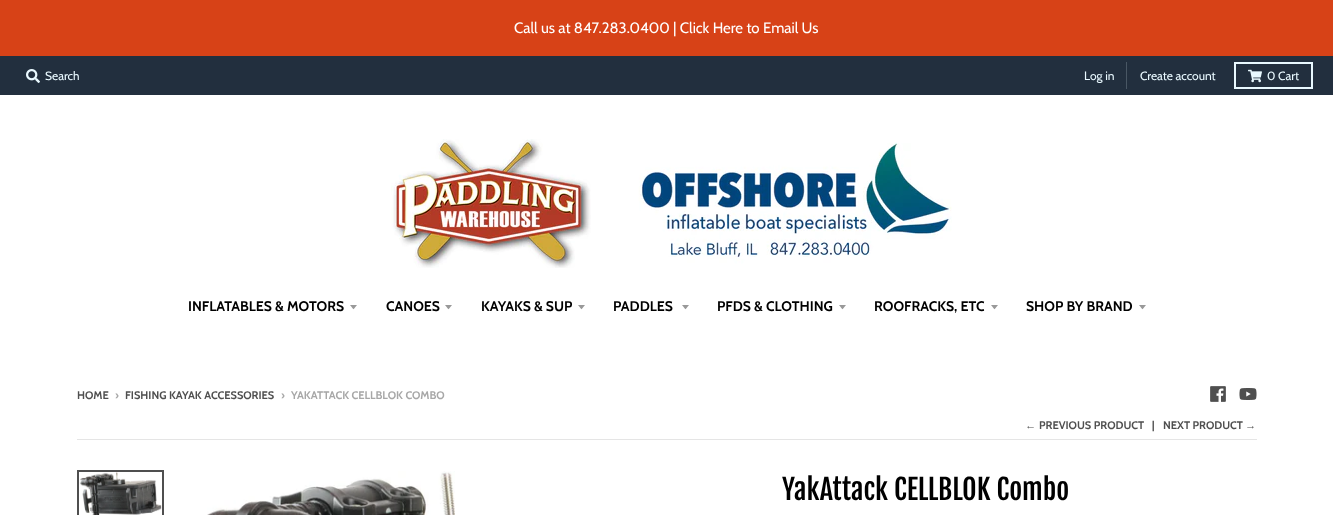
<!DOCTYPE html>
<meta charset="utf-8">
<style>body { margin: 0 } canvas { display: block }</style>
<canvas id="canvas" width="1333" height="515"></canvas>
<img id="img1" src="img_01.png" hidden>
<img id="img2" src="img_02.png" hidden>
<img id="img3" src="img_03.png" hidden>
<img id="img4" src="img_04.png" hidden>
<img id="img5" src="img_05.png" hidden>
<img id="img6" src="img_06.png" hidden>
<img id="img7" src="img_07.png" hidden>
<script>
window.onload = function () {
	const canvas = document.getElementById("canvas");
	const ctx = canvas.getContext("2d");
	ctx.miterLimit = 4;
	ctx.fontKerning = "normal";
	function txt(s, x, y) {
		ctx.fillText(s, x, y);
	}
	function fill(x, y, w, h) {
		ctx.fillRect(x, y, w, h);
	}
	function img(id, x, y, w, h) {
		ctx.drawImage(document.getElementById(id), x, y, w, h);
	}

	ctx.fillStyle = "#FFFFFF";
	fill(0, 0, 1333, 515);
	ctx.fillStyle = "#D74217";
	fill(0, 0, 1333, 56);
	ctx.fillStyle = "#222F3E";
	fill(0, 56, 1333, 39);
	img("img1", 26, 69, 14, 14);
	ctx.fillStyle = "#495764";
	fill(1126, 62, 1, 27);
	ctx.strokeStyle = "#E9F9FF";
	ctx.lineWidth = 2;
	ctx.strokeRect(1235, 63, 77, 25);
	img("img2", 1248, 69, 14, 14);
	img("img3", 391, 139, 561, 129);
	ctx.fillStyle = "#999999";
	ctx.beginPath();
	ctx.moveTo(350, 305);
	ctx.bezierCurveTo(354.5, 310.5, 352.5, 310.5, 357, 305);
	ctx.closePath();
	ctx.fill();
	ctx.beginPath();
	ctx.moveTo(445, 305);
	ctx.bezierCurveTo(449.5, 310.5, 447.5, 310.5, 452, 305);
	ctx.closePath();
	ctx.fill();
	ctx.beginPath();
	ctx.moveTo(578, 305);
	ctx.bezierCurveTo(582.5, 310.5, 580.5, 310.5, 585, 305);
	ctx.closePath();
	ctx.fill();
	ctx.beginPath();
	ctx.moveTo(682, 305);
	ctx.bezierCurveTo(686.5, 310.5, 684.5, 310.5, 689, 305);
	ctx.closePath();
	ctx.fill();
	ctx.beginPath();
	ctx.moveTo(839, 305);
	ctx.bezierCurveTo(843.5, 310.5, 841.5, 310.5, 846, 305);
	ctx.closePath();
	ctx.fill();
	ctx.beginPath();
	ctx.moveTo(991, 305);
	ctx.bezierCurveTo(995.5, 310.5, 993.5, 310.5, 998, 305);
	ctx.closePath();
	ctx.fill();
	ctx.beginPath();
	ctx.moveTo(1139, 305);
	ctx.bezierCurveTo(1143.5, 310.5, 1141.5, 310.5, 1146, 305);
	ctx.closePath();
	ctx.fill();
	img("img4", 1210, 386, 16, 16);
	img("img5", 1239, 388, 18, 12);
	ctx.fillStyle = "#E5E5E5";
	fill(77, 439, 1180, 1);
	ctx.strokeStyle = "#4F4F4F";
	ctx.strokeRect(78, 471, 85, 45);
	img("img6", 79, 472, 83, 43);
	img("img7", 207, 471, 248, 44);
	ctx.font = "15px Cabin";
	ctx.fillStyle = "#FFFFFF";
	txt("Call us at 847.283.0400 | Click Here to Email Us", 514, 33);
	ctx.font = "12px Cabin";
	ctx.fillStyle = "#E9F9FF";
	txt("Search", 45, 80);
	txt("Log in", 1084, 80);
	txt("Create account", 1140, 80);
	txt("0 Cart", 1267, 80);
	ctx.font = "bold 14px Cabin";
	ctx.fillStyle = "#000000";
	txt("INFLATABLES & MOTORS", 188, 311);
	txt("CANOES", 386, 311);
	txt("KAYAKS & SUP", 481, 311);
	txt("PADDLES", 613, 311);
	txt("PFDS & CLOTHING", 717, 311);
	txt("ROOFRACKS, ETC", 874, 311);
	txt("SHOP BY BRAND", 1026, 311);
	ctx.font = "bold 11px Cabin";
	ctx.fillStyle = "#4F4F4F";
	txt("HOME", 77, 399);
	ctx.fillStyle = "#A7A7A7";
	txt("›", 115, 399);
	ctx.fillStyle = "#4F4F4F";
	txt("FISHING KAYAK ACCESSORIES", 125, 399);
	ctx.fillStyle = "#A7A7A7";
	txt("›", 281, 399);
	txt("YAKATTACK CELLBLOK COMBO", 291, 399);
	ctx.font = "bold 11px Liberation Sans";
	ctx.fillStyle = "#4F4F4F";
	txt("←", 1025, 429);
	ctx.font = "bold 11px Cabin";
	txt("PREVIOUS PRODUCT", 1039, 429);
	txt("|", 1152, 429);
	txt("NEXT PRODUCT", 1163, 429);
	ctx.font = "bold 11px Liberation Sans";
	txt("→", 1245, 429);
	ctx.font = "28px Fjalla One";
	ctx.fillStyle = "#000000";
	txt("YakAttack CELLBLOK Combo", 782, 500);
};
</script>
